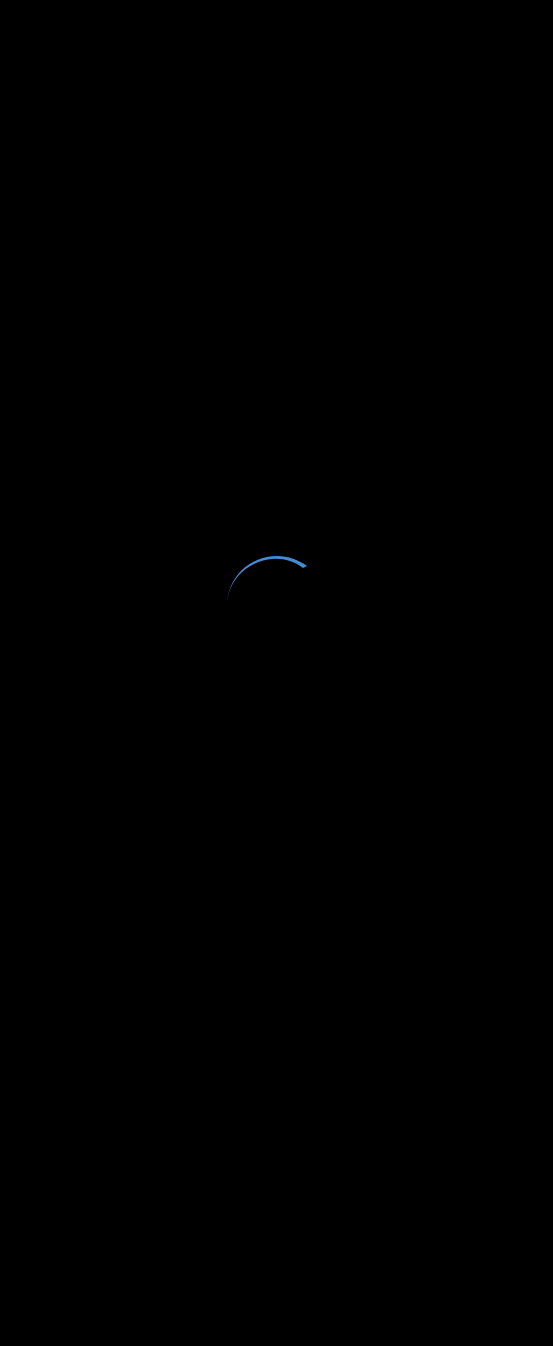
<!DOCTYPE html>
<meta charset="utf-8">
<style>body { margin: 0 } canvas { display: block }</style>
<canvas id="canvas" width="553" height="1346"></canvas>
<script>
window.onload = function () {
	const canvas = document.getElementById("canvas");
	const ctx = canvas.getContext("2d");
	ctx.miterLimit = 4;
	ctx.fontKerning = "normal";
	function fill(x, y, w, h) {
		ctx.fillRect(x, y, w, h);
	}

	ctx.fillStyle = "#000000";
	fill(0, 0, 553, 1346);
	ctx.fillStyle = "#448BD6";
	ctx.beginPath();
	ctx.moveTo(277, 556);
	ctx.bezierCurveTo(249, 556, 227, 578, 227, 606);
	ctx.bezierCurveTo(227, 568, 273, 545, 303, 568);
	ctx.lineTo(307, 566);
	ctx.bezierCurveTo(299, 560, 288, 556, 277, 556);
	ctx.closePath();
	ctx.fill();
};
</script>
